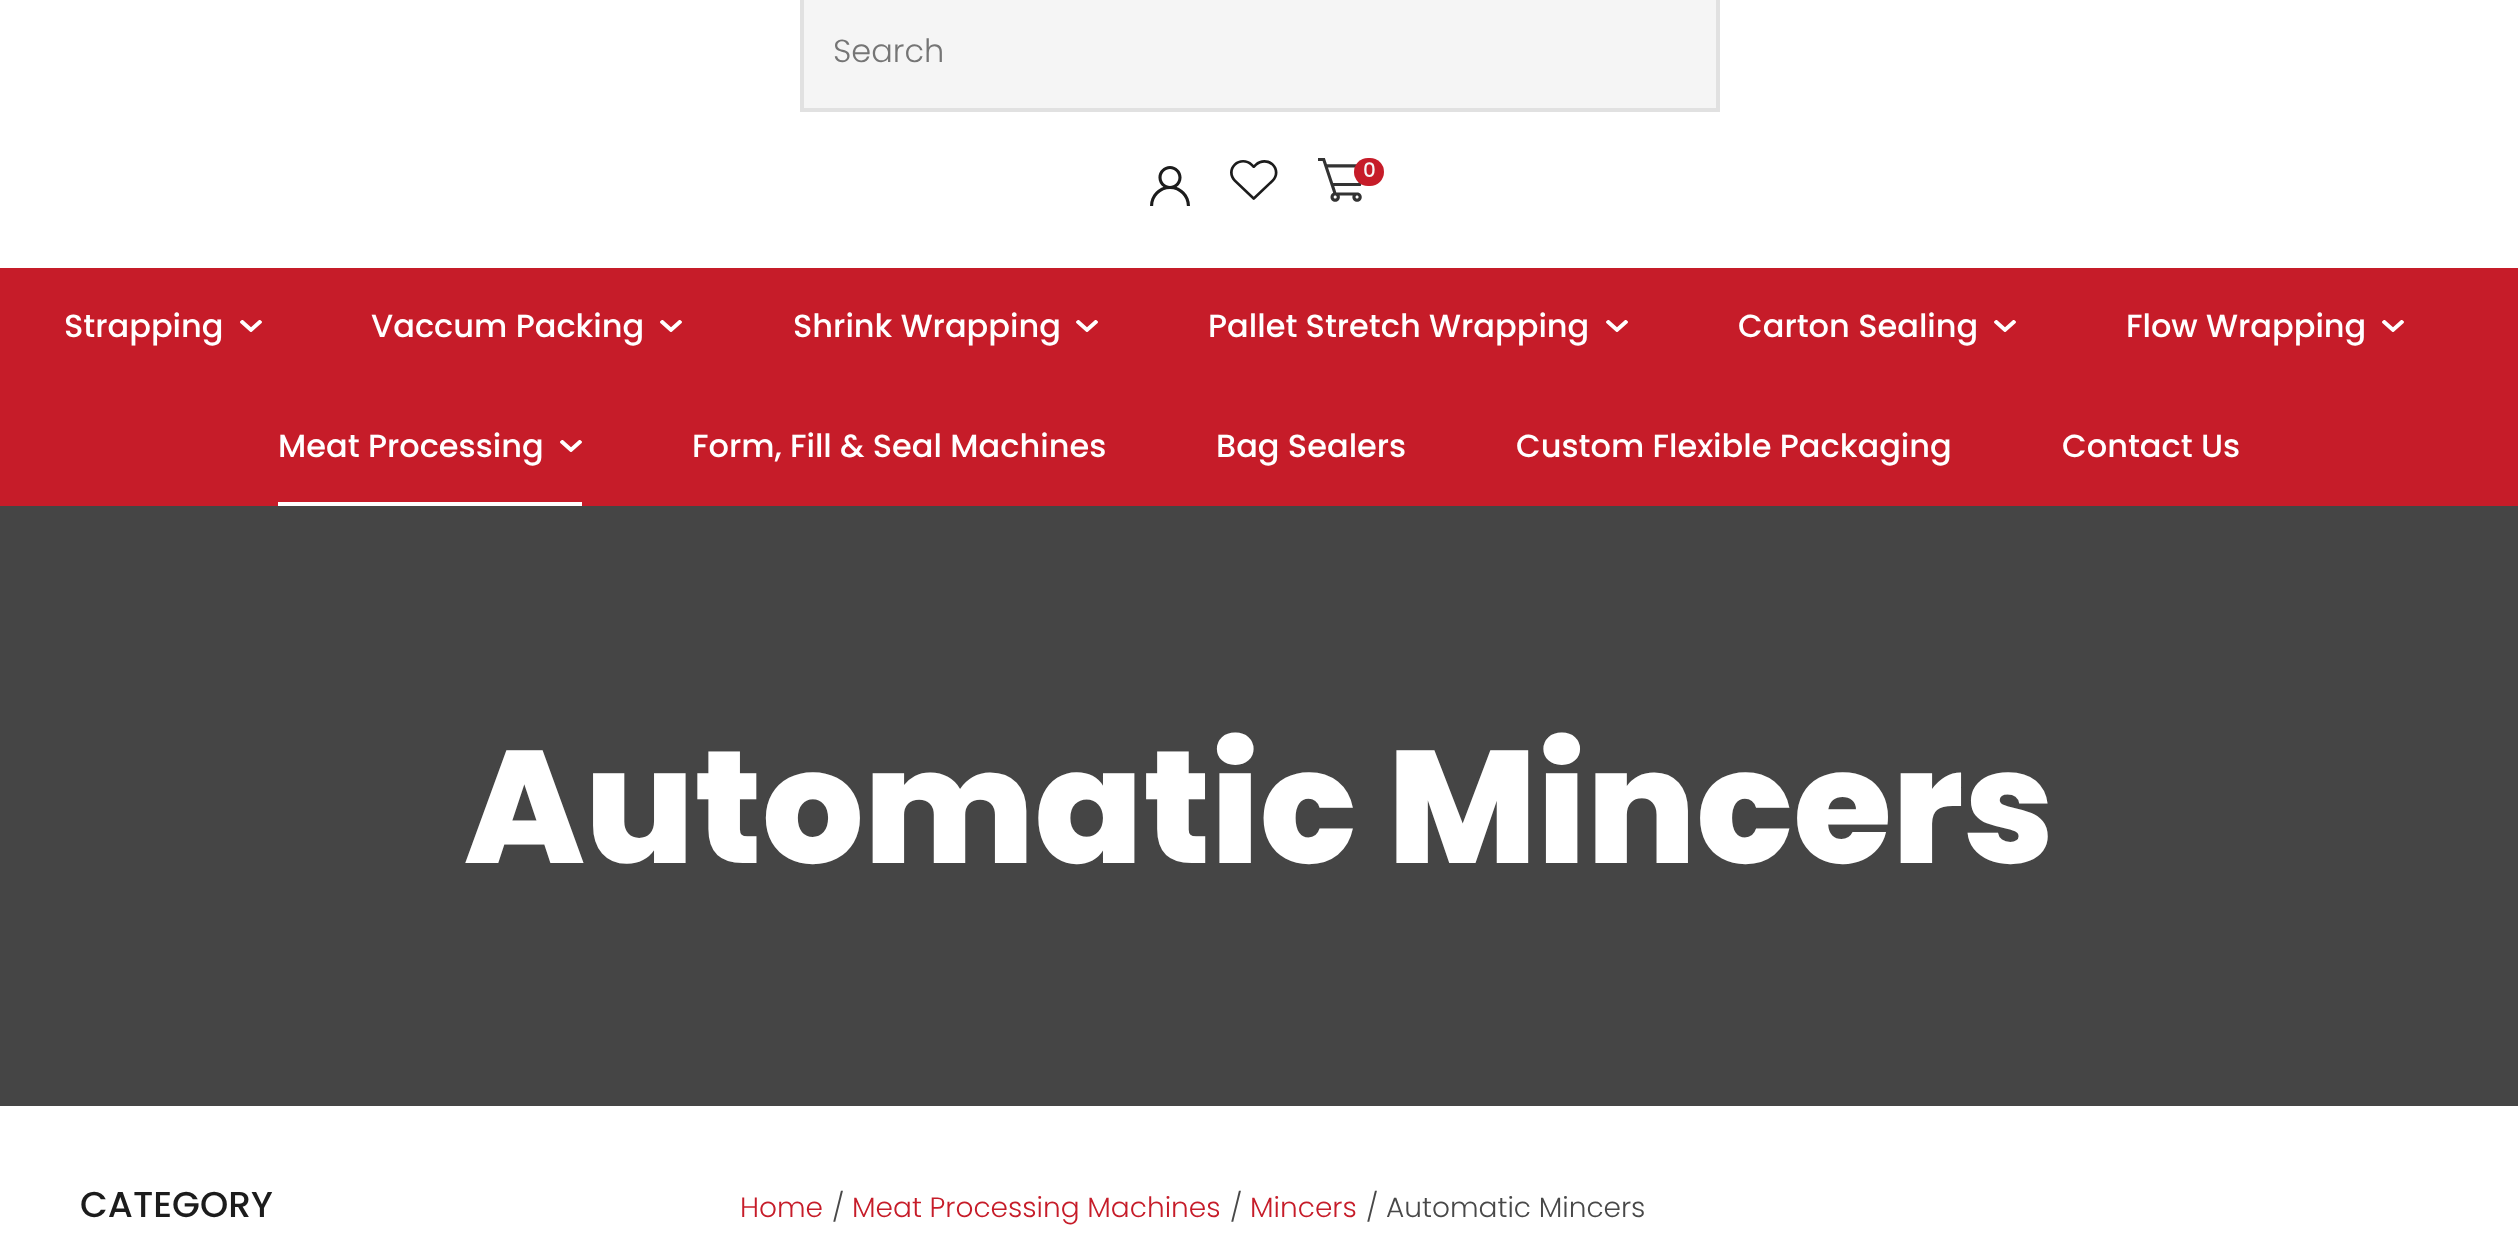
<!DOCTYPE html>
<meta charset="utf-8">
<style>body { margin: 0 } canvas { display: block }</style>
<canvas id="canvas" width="2518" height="1236"></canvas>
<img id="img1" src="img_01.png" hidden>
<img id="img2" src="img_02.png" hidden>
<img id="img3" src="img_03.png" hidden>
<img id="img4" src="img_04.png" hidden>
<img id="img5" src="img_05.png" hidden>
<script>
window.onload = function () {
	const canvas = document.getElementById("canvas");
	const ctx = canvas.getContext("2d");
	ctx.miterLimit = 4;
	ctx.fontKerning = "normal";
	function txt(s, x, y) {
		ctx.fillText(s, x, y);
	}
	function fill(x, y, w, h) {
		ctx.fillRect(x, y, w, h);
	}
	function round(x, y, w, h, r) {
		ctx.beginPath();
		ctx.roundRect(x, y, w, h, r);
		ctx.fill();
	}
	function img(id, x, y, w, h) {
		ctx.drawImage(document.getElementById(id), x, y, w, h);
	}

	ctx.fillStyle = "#FFFFFF";
	fill(0, 0, 2518, 1236);
	ctx.fillStyle = "#F5F5F5";
	ctx.beginPath();
	ctx.rect(802, -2, 916, 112);
	ctx.fill();
	ctx.strokeStyle = "#E1E1E1";
	ctx.lineWidth = 4;
	ctx.stroke();
	img("img1", 1150, 166, 40, 40);
	img("img2", 1230, 160, 48, 40);
	img("img3", 1318, 158, 44, 44);
	ctx.fillStyle = "#C61C29";
	round(1354, 158, 30, 28, 14);
	fill(0, 268, 2518, 238);
	img("img4", 240, 320, 22, 12);
	img("img5", 660, 320, 22, 12);
	img("img5", 1076, 320, 22, 12);
	img("img5", 1606, 320, 22, 12);
	img("img5", 1994, 320, 22, 12);
	img("img5", 2382, 320, 22, 12);
	ctx.fillStyle = "#FFFFFF";
	fill(278, 502, 304, 4);
	img("img5", 560, 440, 22, 12);
	ctx.fillStyle = "#454545";
	fill(0, 506, 2518, 600);
	ctx.font = "300 32px Poppins";
	ctx.fillStyle = "#757575";
	txt("Search", 833, 62);
	ctx.font = "500 20px Poppins";
	ctx.fillStyle = "#F8F8F8";
	txt("0", 1363, 177);
	ctx.font = "500 32px Poppins";
	ctx.fillStyle = "#FFFFFF";
	txt("Strapping", 64, 337);
	txt("Vaccum Packing", 371, 337);
	txt("Shrink Wrapping", 793, 337);
	txt("Pallet Stretch Wrapping", 1208, 337);
	txt("Carton Sealing", 1738, 337);
	txt("Flow Wrapping", 2126, 337);
	txt("Meat Processing", 278, 457);
	txt("Form, Fill & Seal Machines", 692, 457);
	txt("Bag Sealers", 1216, 457);
	txt("Custom Flexible Packaging", 1516, 457);
	txt("Contact Us", 2062, 457);
	ctx.font = "800 160px Poppins";
	txt("Automatic Mincers", 464, 863);
	ctx.font = "500 36px Poppins";
	ctx.fillStyle = "#1C1C1C";
	txt("CATEGORY", 80, 1217);
	ctx.font = "300 28px Poppins";
	ctx.fillStyle = "#C61C29";
	txt("Home", 740, 1217);
	ctx.fillStyle = "#484848";
	txt("/", 832, 1217);
	ctx.fillStyle = "#C61C29";
	txt("Meat Processing Machines", 852, 1217);
	ctx.fillStyle = "#484848";
	txt("/", 1230, 1217);
	ctx.fillStyle = "#C61C29";
	txt("Mincers", 1250, 1217);
	ctx.fillStyle = "#484848";
	txt("/ Automatic Mincers", 1366, 1217);
};
</script>
